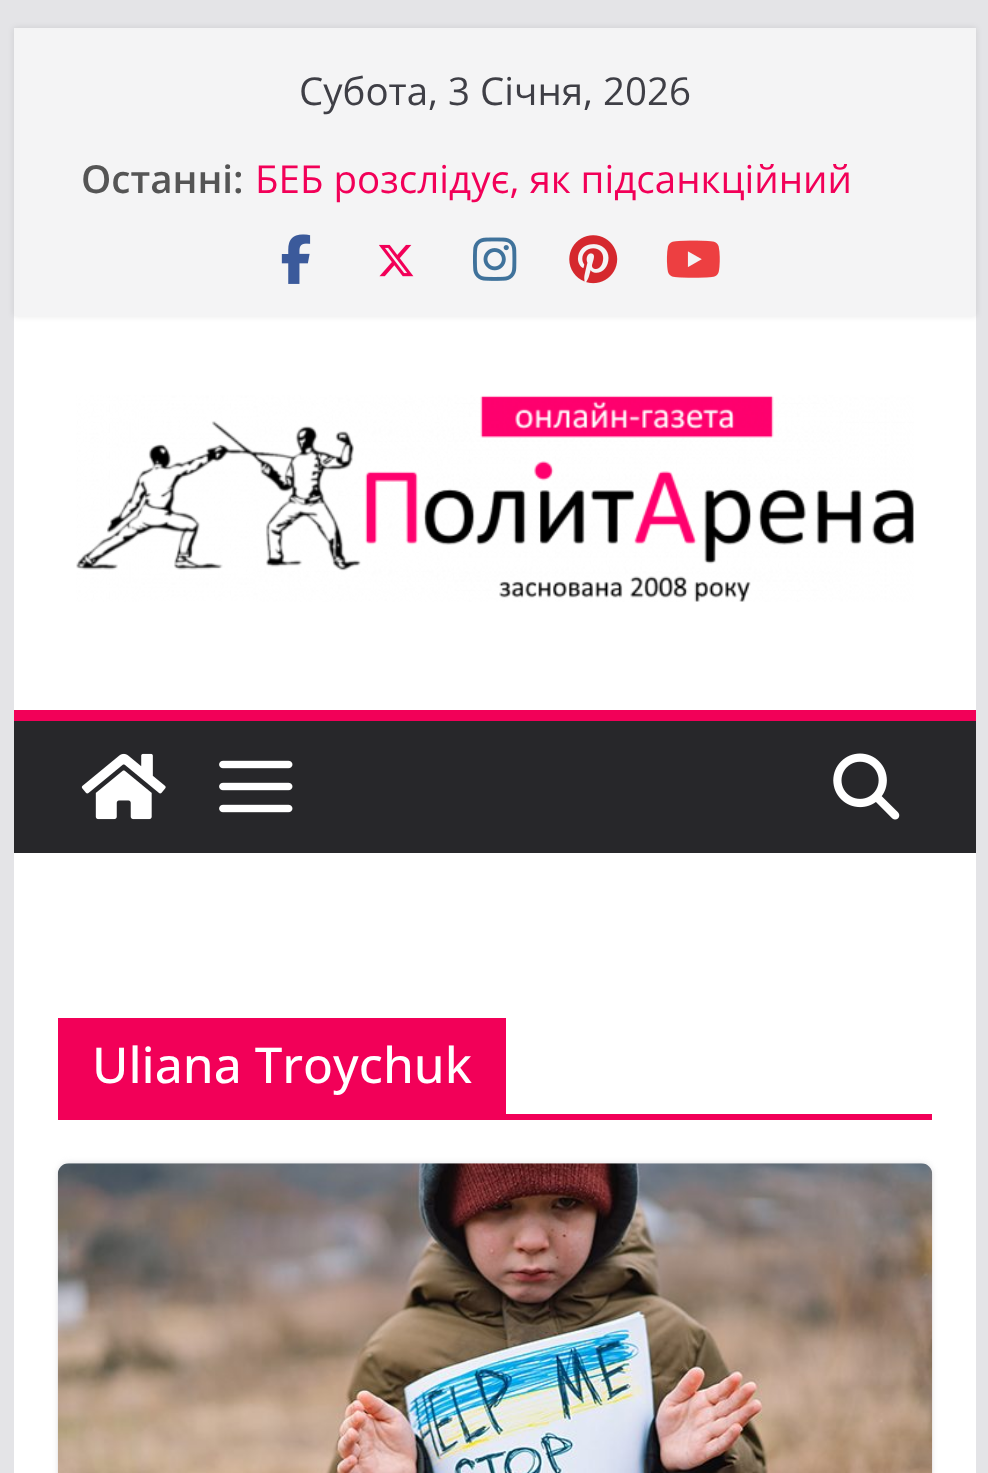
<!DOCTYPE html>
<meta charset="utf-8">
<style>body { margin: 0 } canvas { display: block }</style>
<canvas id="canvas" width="988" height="1473"></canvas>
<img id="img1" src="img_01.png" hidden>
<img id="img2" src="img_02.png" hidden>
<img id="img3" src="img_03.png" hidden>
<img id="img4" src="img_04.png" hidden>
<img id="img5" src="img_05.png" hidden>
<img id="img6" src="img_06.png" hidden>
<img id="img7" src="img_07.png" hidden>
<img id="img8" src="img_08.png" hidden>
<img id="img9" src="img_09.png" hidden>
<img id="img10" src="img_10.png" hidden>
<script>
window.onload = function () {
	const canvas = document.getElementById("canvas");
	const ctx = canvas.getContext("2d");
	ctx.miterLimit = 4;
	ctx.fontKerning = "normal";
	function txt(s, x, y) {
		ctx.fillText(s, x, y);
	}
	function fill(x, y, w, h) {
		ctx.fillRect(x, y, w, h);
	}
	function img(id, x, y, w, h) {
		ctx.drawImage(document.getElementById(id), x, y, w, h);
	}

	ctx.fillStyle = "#E4E4E7";
	fill(0, 0, 988, 1473);
	ctx.fillStyle = "#FFFFFF";
	fill(14, 316, 962, 394);
	ctx.fillStyle = "rgba(0, 0, 0, 0.1)";
	ctx.filter = "blur(3px)";
	ctx.beginPath();
	ctx.rect(14, 28, 962, 288);
	ctx.fill();
	ctx.filter = "none";
	ctx.fillStyle = "#F4F4F5";
	fill(14, 28, 962, 288);
	img("img1", 281, 234, 30, 50);
	img("img2", 379, 244, 35, 33);
	img("img3", 473, 237, 44, 44);
	img("img4", 569, 235, 49, 49);
	img("img5", 666, 240, 54, 38);
	img("img6", 76, 395, 838, 207);
	ctx.fillStyle = "#27272A";
	fill(14, 721, 962, 132);
	ctx.fillStyle = "#F20058";
	fill(14, 710, 962, 11);
	img("img7", 81, 753, 85, 67);
	img("img8", 219, 760, 74, 53);
	img("img9", 833, 753, 67, 67);
	ctx.fillStyle = "#FFFFFF";
	fill(14, 853, 962, 620);
	ctx.fillStyle = "#F20058";
	fill(58, 1114, 874, 6);
	fill(58, 1018, 448, 96);
	ctx.fillStyle = "#E4E4E7";
	ctx.filter = "blur(3px)";
	ctx.beginPath();
	ctx.roundRect(58, 1163, 874, 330, 11);
	ctx.fill();
	ctx.filter = "none";
	img("img10", 57, 1163, 876, 310);
	ctx.font = "38.5px Open Sans";
	ctx.fillStyle = "#3F3F46";
	txt("Субота, 3 Січня, 2026", 299, 105);
	ctx.font = "600 38.5px Open Sans";
	ctx.fillStyle = "#555555";
	txt("Останні:", 81, 193);
	ctx.font = "38.5px Open Sans";
	ctx.fillStyle = "#F20058";
	txt("БЕБ розслідує, як підсанкційний", 255, 193);
	ctx.font = "500 49.5px Open Sans";
	ctx.fillStyle = "#FFFFFF";
	txt("Uliana Troychuk", 92, 1083);
};
</script>
